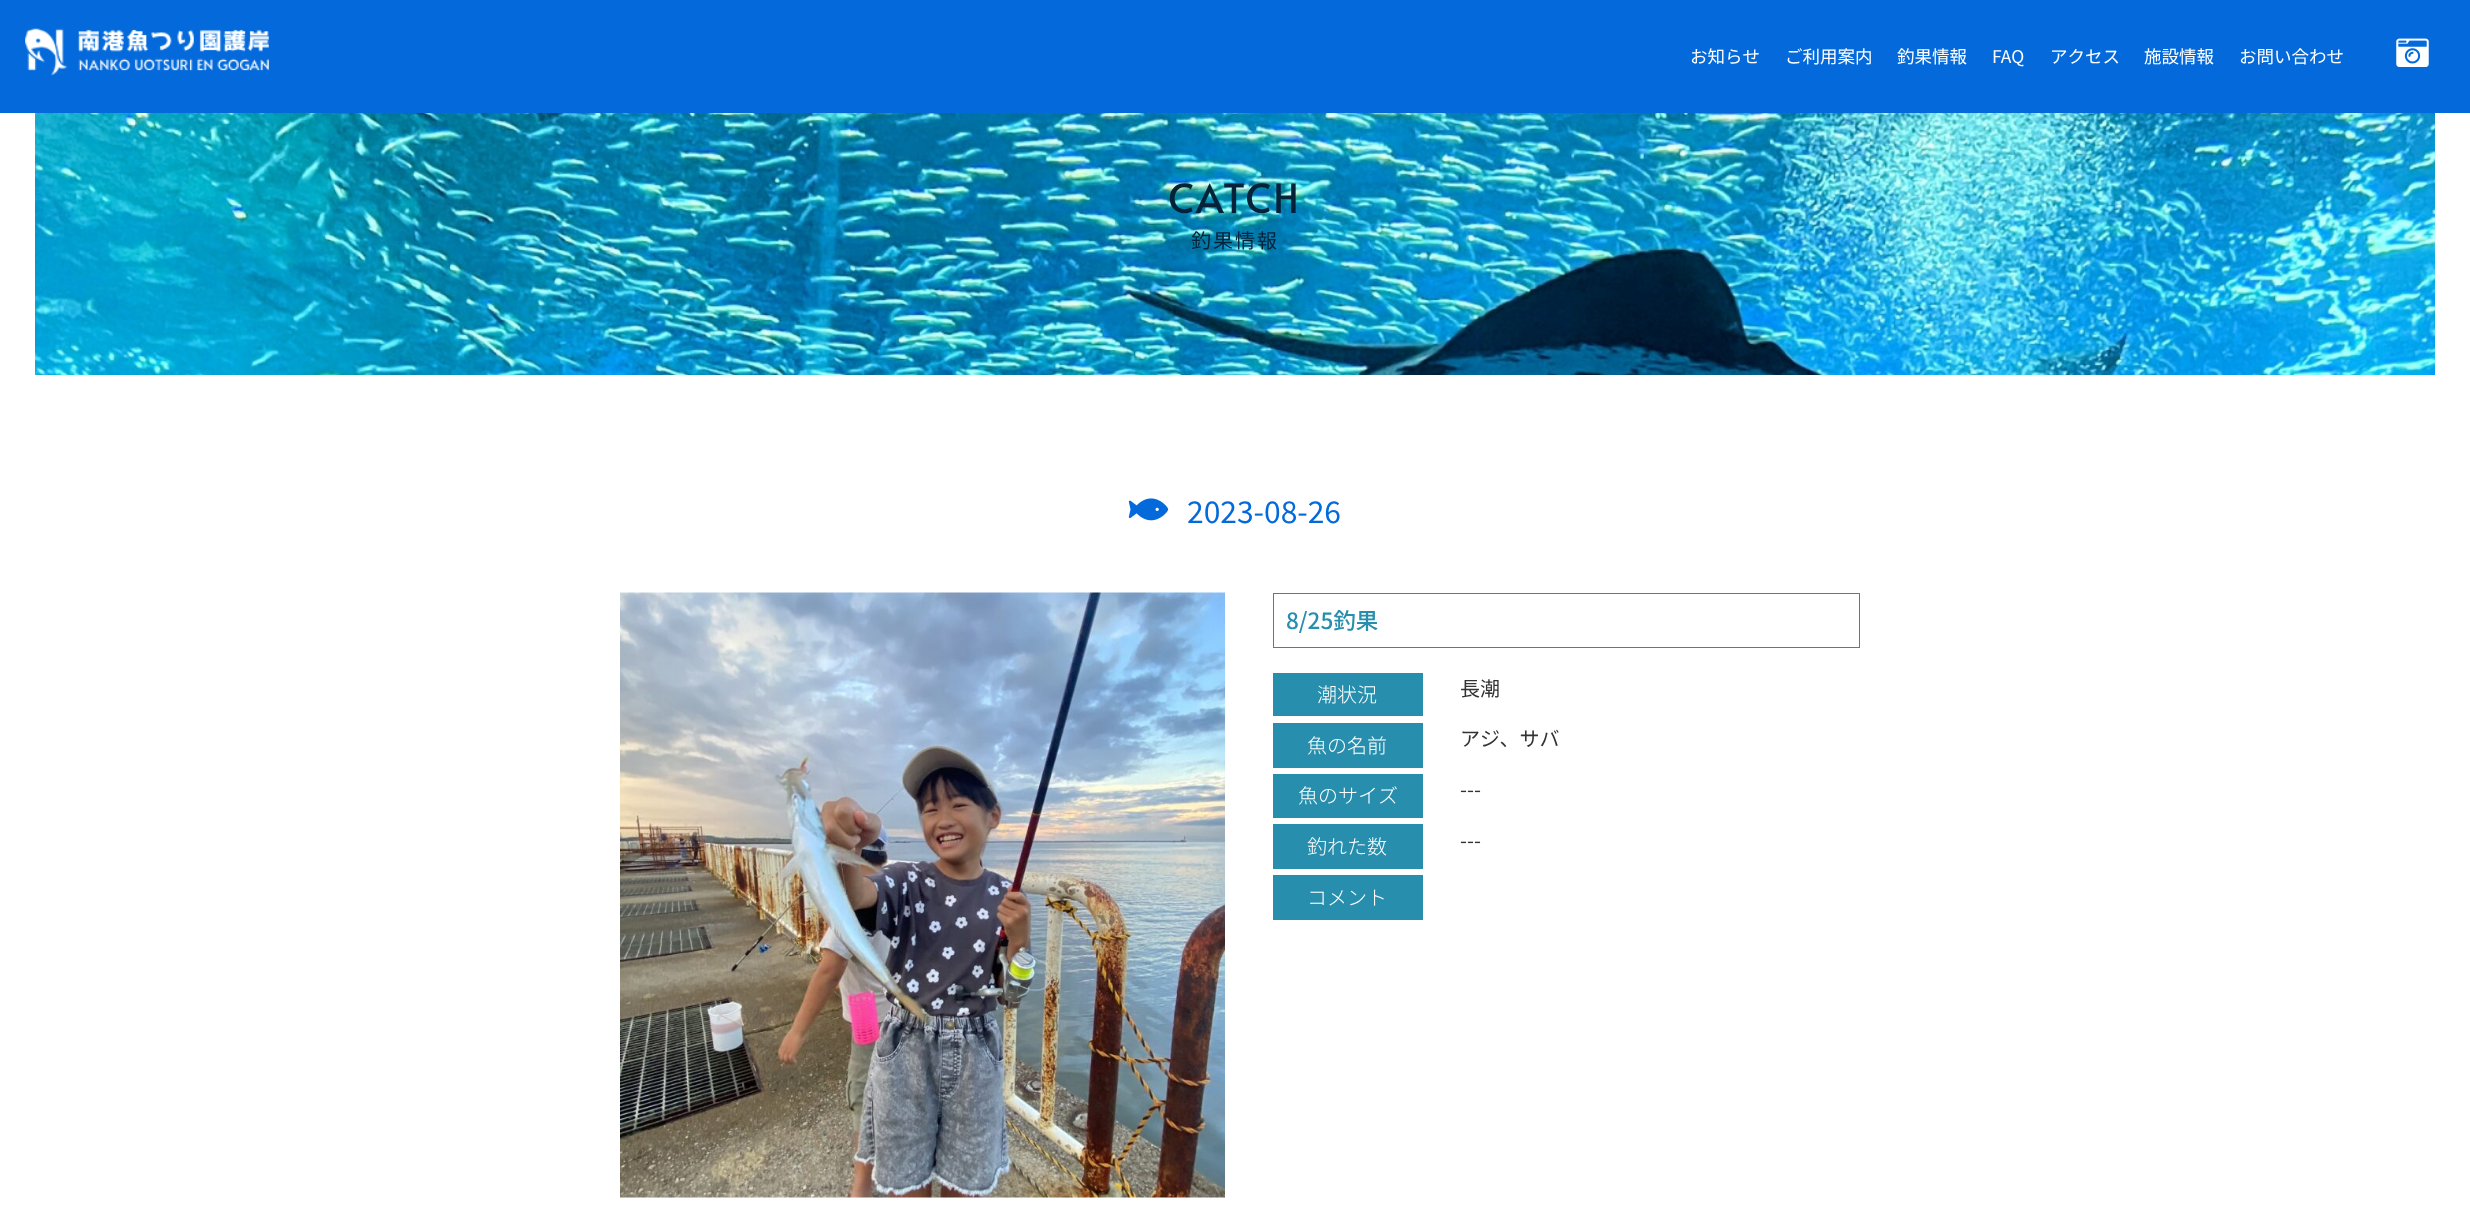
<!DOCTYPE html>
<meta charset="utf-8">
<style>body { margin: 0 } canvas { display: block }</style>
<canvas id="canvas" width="2470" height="1210"></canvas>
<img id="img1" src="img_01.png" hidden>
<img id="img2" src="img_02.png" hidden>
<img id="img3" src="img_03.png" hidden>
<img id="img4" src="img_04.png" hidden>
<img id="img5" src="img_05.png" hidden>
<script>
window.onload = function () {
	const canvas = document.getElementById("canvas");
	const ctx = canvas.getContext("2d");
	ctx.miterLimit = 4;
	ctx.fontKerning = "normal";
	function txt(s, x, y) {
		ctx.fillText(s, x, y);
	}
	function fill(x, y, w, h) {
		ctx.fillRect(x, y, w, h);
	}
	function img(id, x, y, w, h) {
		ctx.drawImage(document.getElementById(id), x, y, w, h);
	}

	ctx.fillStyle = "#FFFFFF";
	fill(0, 0, 2470, 1210);
	ctx.fillStyle = "#046ADB";
	fill(0, 0, 2470, 113);
	img("img1", 25, 28, 244, 47);
	img("img2", 2396, 38, 33, 29);
	img("img3", 35, 113, 2400, 262);
	img("img4", 1128, 498, 41, 23);
	img("img5", 620, 592, 605, 606);
	ctx.strokeStyle = "#278FAD";
	ctx.strokeRect(1273.5, 593.5, 586, 54);
	ctx.fillStyle = "#278FAD";
	fill(1273, 673, 150, 43);
	fill(1273, 723, 150, 45);
	fill(1273, 774, 150, 44);
	fill(1273, 824, 150, 45);
	fill(1273, 875, 150, 45);
	ctx.font = "100 17.5px Noto Sans JP";
	ctx.fillStyle = "#FFFFFF";
	txt("お知らせ", 1690, 63);
	txt("ご利用案内", 1785, 63);
	txt("釣果情報", 1897, 63);
	txt("FAQ", 1992, 63);
	txt("アクセス", 2050, 63);
	txt("施設情報", 2144, 63);
	txt("お問い合わせ", 2239, 63);
	ctx.letterSpacing = "2px";
	ctx.font = "40px Alata";
	ctx.fillStyle = "#062239";
	txt("CATCH", 1168, 213);
	ctx.font = "100 20px Noto Sans JP";
	txt("釣果情報", 1191, 248);
	ctx.letterSpacing = "0px";
	ctx.font = "100 30px Noto Sans JP";
	ctx.fillStyle = "#046ADB";
	txt("2023-08-26", 1187, 523);
	ctx.font = "500 22.5px Noto Sans JP";
	ctx.fillStyle = "#278FAD";
	txt("8/25釣果", 1286, 629);
	ctx.font = "300 20px Noto Sans JP";
	ctx.fillStyle = "#FFFFFF";
	txt("潮状況", 1317, 702);
	ctx.font = "100 20px Noto Sans JP";
	ctx.fillStyle = "#333333";
	txt("長潮", 1460, 696);
	ctx.font = "300 20px Noto Sans JP";
	ctx.fillStyle = "#FFFFFF";
	txt("魚の名前", 1307, 753);
	ctx.font = "100 20px Noto Sans JP";
	ctx.fillStyle = "#333333";
	txt("アジ、サバ", 1460, 746);
	ctx.font = "300 20px Noto Sans JP";
	ctx.fillStyle = "#FFFFFF";
	txt("魚のサイズ", 1298, 803);
	ctx.font = "100 20px Noto Sans JP";
	ctx.fillStyle = "#333333";
	txt("---", 1460, 797);
	ctx.font = "300 20px Noto Sans JP";
	ctx.fillStyle = "#FFFFFF";
	txt("釣れた数", 1307, 854);
	ctx.font = "100 20px Noto Sans JP";
	ctx.fillStyle = "#333333";
	txt("---", 1460, 848);
	ctx.font = "300 20px Noto Sans JP";
	ctx.fillStyle = "#FFFFFF";
	txt("コメント", 1307, 905);
};
</script>
